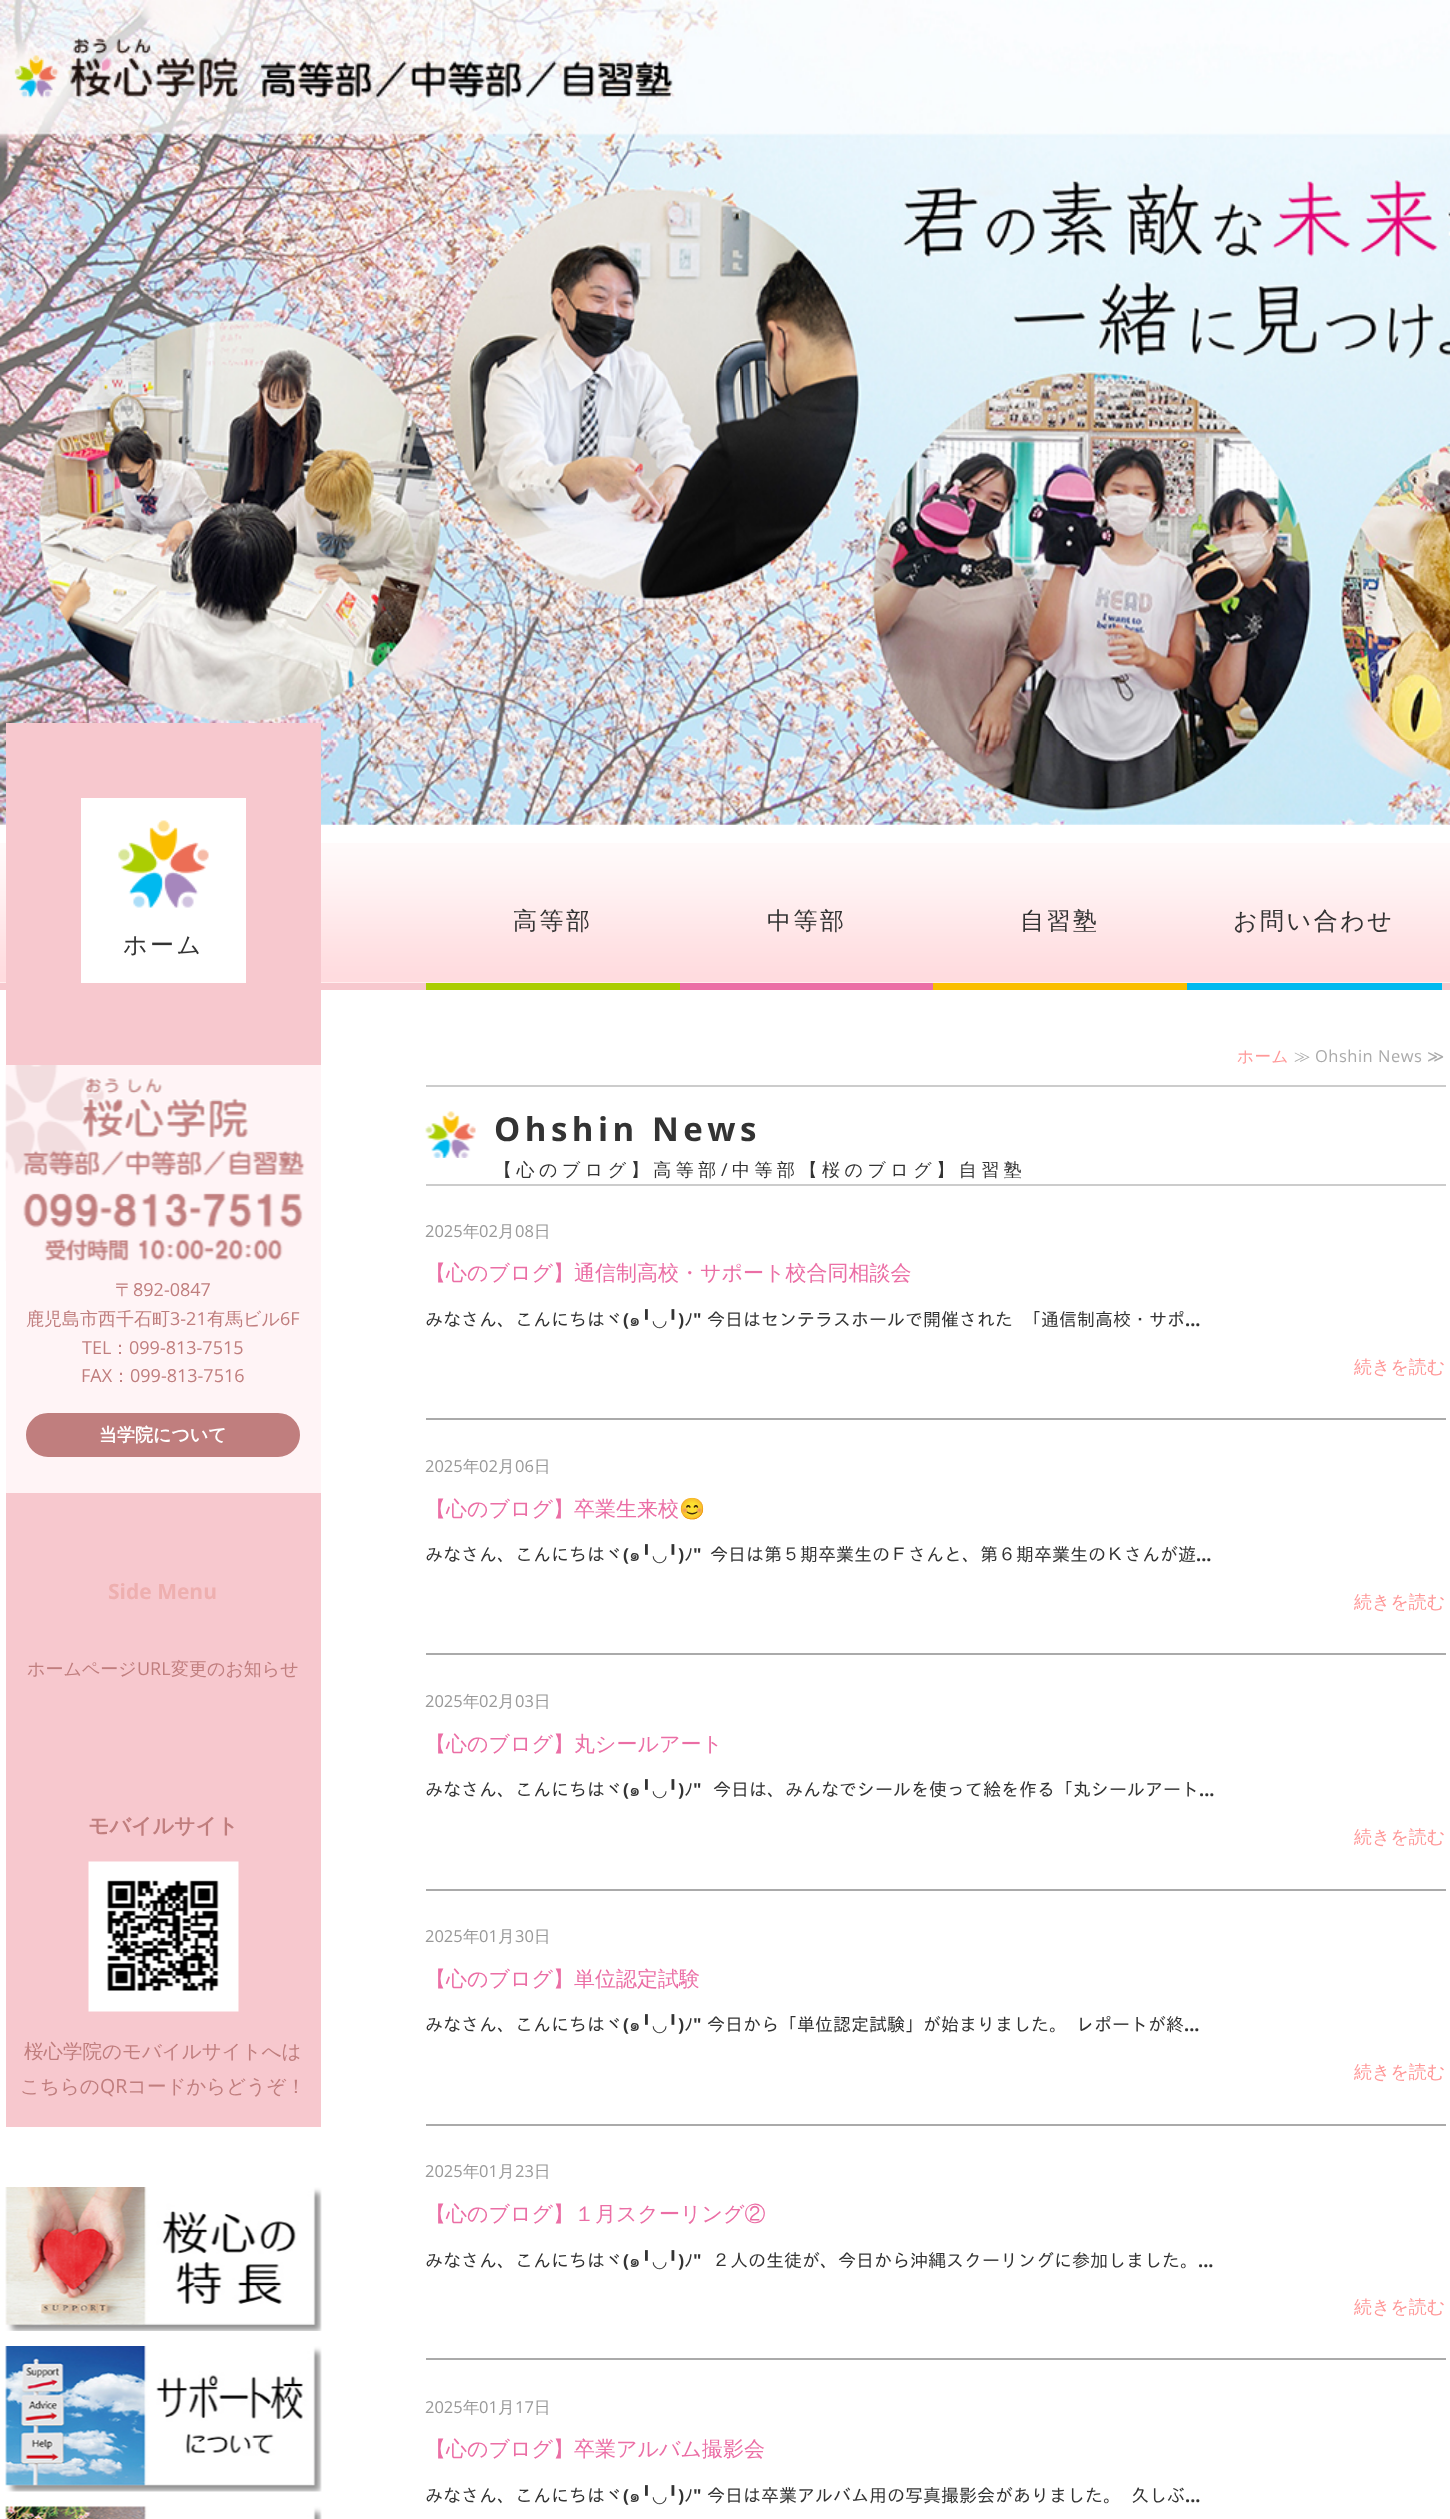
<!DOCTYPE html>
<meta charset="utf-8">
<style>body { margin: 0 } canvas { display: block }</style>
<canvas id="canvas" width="1450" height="2519"></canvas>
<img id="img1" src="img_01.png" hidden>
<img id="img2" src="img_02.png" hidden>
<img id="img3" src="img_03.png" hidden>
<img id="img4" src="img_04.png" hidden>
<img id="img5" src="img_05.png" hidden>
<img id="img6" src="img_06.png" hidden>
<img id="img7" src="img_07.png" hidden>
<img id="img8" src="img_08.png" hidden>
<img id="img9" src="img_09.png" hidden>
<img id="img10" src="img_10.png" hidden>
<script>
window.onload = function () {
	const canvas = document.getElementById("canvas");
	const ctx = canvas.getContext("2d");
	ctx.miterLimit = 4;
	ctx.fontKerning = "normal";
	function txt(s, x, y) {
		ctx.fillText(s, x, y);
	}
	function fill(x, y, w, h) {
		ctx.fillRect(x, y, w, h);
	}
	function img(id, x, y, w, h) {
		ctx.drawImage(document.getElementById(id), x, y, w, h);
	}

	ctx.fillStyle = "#FFFFFF";
	fill(0, 0, 1450, 2519);
	img("img1", 0, 0, 1450, 825);
	img("img2", 14, 37, 659, 61);
	ctx.fillStyle = "#F7C8CE";
	fill(0, 983, 1450, 7);
	img("img3", 0, 843, 1450, 140);
	ctx.fillStyle = "#ABCD03";
	fill(426, 983, 254, 7);
	ctx.fillStyle = "#EB6EA5";
	fill(680, 983, 253, 7);
	ctx.fillStyle = "#FABE00";
	fill(933, 983, 254, 7);
	ctx.fillStyle = "#00B9EF";
	fill(1187, 983, 255, 7);
	ctx.fillStyle = "#F7C8CE";
	fill(6, 723, 315, 260);
	ctx.fillStyle = "#FFFFFF";
	fill(81, 798, 165, 185);
	img("img4", 118, 820, 91, 88);
	ctx.fillStyle = "#F7C8CE";
	fill(6, 990, 315, 75);
	ctx.fillStyle = "#FFF4F6";
	fill(6, 1065, 315, 428);
	img("img5", 5, 1065, 300, 196);
	ctx.fillStyle = "#C07E7E";
	ctx.beginPath();
	ctx.roundRect(27.5, 1414.5, 271, 41, 20.5);
	ctx.fill();
	ctx.strokeStyle = "#C07E7E";
	ctx.lineWidth = 3;
	ctx.stroke();
	ctx.fillStyle = "#F7C8CE";
	fill(6, 1493, 315, 634);
	img("img6", 88, 1861, 151, 151);
	img("img7", 5, 2187, 317, 144);
	img("img8", 5, 2346, 317, 146);
	img("img9", 5, 2506, 317, 13);
	img("img10", 425, 1111, 51, 47);
	ctx.fillStyle = "#CCCCCC";
	fill(426, 1085, 1020, 2);
	fill(426, 1184, 1020, 2);
	ctx.fillStyle = "#AAAAAA";
	fill(426, 1418, 1020, 2);
	fill(426, 1653, 1020, 2);
	fill(426, 1889, 1020, 2);
	fill(426, 2124, 1020, 2);
	fill(426, 2358, 1020, 2);
	ctx.letterSpacing = "2.5px";
	ctx.font = "500 24px WenQuanYi Zen Hei";
	ctx.fillStyle = "#333333";
	txt("高等部", 513, 929);
	txt("中等部", 767, 929);
	txt("自習塾", 1020, 929);
	txt("お問い合わせ", 1233, 929);
	txt("ホーム", 123, 953);
	ctx.letterSpacing = "0px";
	ctx.font = "500 18px WenQuanYi Zen Hei";
	ctx.fillStyle = "#C07E7E";
	txt("〒", 115, 1296);
	ctx.font = "18px Open Sans";
	txt("892-0847", 133, 1296);
	ctx.font = "500 18px WenQuanYi Zen Hei";
	txt("鹿児島市西千石町", 26, 1325);
	ctx.font = "18px Open Sans";
	txt("3-21", 170, 1325);
	ctx.font = "500 18px WenQuanYi Zen Hei";
	txt("有馬ビル", 207, 1325);
	ctx.font = "18px Open Sans";
	txt("6F", 280, 1325);
	txt("TEL", 82, 1354);
	ctx.font = "500 18px WenQuanYi Zen Hei";
	txt("：", 111, 1354);
	ctx.font = "18px Open Sans";
	txt("099-813-7515", 129, 1354);
	txt("FAX", 81, 1382);
	ctx.font = "500 18px WenQuanYi Zen Hei";
	txt("：", 112, 1382);
	ctx.font = "18px Open Sans";
	txt("099-813-7516", 130, 1382);
	ctx.font = "bold 18px WenQuanYi Zen Hei";
	ctx.fillStyle = "#FFFFFF";
	txt("当学院について", 99, 1441);
	ctx.font = "bold 21px Open Sans";
	ctx.fillStyle = "#EEAFAF";
	txt("Side Menu", 108, 1599);
	ctx.font = "500 18px WenQuanYi Zen Hei";
	ctx.fillStyle = "#C07E7E";
	txt("ホームページ", 27, 1675);
	ctx.font = "18px Open Sans";
	txt("URL", 137, 1675);
	ctx.font = "500 18px WenQuanYi Zen Hei";
	txt("変更のお知らせ", 171, 1675);
	ctx.font = "bold 21px WenQuanYi Zen Hei";
	txt("モバイルサイト", 88, 1833);
	ctx.font = "500 19.5px WenQuanYi Zen Hei";
	txt("桜心学院のモバイルサイトへは", 24, 2058);
	txt("こちらの", 20, 2093);
	ctx.font = "19.5px Open Sans";
	txt("QR", 100, 2093);
	ctx.font = "500 19.5px WenQuanYi Zen Hei";
	txt("コードからどうぞ！", 127, 2093);
	ctx.letterSpacing = "0.5px";
	ctx.font = "500 16.5px WenQuanYi Zen Hei";
	ctx.fillStyle = "#FF9898";
	txt("ホーム", 1237, 1062);
	ctx.fillStyle = "#AAAAAA";
	txt("≫", 1294, 1062);
	ctx.font = "16.5px Open Sans";
	txt("Ohshin News", 1315, 1062);
	ctx.font = "16.5px DejaVu Sans";
	txt("≫", 1427, 1062);
	ctx.letterSpacing = "4.5px";
	ctx.font = "bold 33px Open Sans";
	ctx.fillStyle = "#333333";
	txt("Ohshin News", 494, 1141);
	ctx.font = "500 18px WenQuanYi Zen Hei";
	txt("【心のブログ】高等部", 494, 1176);
	ctx.font = "18px Open Sans";
	txt("/", 721, 1176);
	ctx.font = "500 18px WenQuanYi Zen Hei";
	txt("中等部【桜のブログ】自習塾", 732, 1176);
	ctx.letterSpacing = "0px";
	ctx.font = "16.5px Open Sans";
	ctx.fillStyle = "#999999";
	txt("2025", 425, 1237);
	ctx.font = "500 16.5px WenQuanYi Zen Hei";
	txt("年", 463, 1237);
	ctx.font = "16.5px Open Sans";
	txt("02", 479, 1237);
	ctx.font = "500 16.5px WenQuanYi Zen Hei";
	txt("月", 498, 1237);
	ctx.font = "16.5px Open Sans";
	txt("08", 515, 1237);
	ctx.font = "500 16.5px WenQuanYi Zen Hei";
	txt("日", 534, 1237);
	ctx.font = "500 21px WenQuanYi Zen Hei";
	ctx.fillStyle = "#EB6EA5";
	txt("【心のブログ】通信制高校・サポート校合同相談会", 425, 1280);
	ctx.font = "18px IPAGothic";
	ctx.fillStyle = "#333333";
	txt("みなさん、こんにちはヾ", 425, 1326);
	ctx.font = "bold 18px Open Sans";
	txt("(", 623, 1326);
	ctx.font = "18px DejaVu Sans";
	txt("╹◡╹", 641, 1326);
	ctx.font = "bold 18px Open Sans";
	txt(")", 678, 1326);
	ctx.font = "18px IPAGothic";
	txt("ﾉ", 684, 1326);
	ctx.font = "bold 18px Open Sans";
	txt("\"", 693, 1326);
	ctx.wordSpacing = "1px";
	ctx.font = "18px IPAGothic";
	txt("今日はセンテラスホールで開催された 「通信制高校・サポ", 707, 1326);
	ctx.wordSpacing = "0px";
	ctx.font = "18px Loma";
	txt("๑", 629, 1326);
	ctx.font = "bold 18px Open Sans";
	txt("...", 1185, 1326);
	ctx.font = "500 18px WenQuanYi Zen Hei";
	ctx.fillStyle = "#FF9898";
	txt("続きを読む", 1354, 1373);
	ctx.font = "16.5px Open Sans";
	ctx.fillStyle = "#999999";
	txt("2025", 425, 1472);
	ctx.font = "500 16.5px WenQuanYi Zen Hei";
	txt("年", 463, 1472);
	ctx.font = "16.5px Open Sans";
	txt("02", 479, 1472);
	ctx.font = "500 16.5px WenQuanYi Zen Hei";
	txt("月", 498, 1472);
	ctx.font = "16.5px Open Sans";
	txt("06", 515, 1472);
	ctx.font = "500 16.5px WenQuanYi Zen Hei";
	txt("日", 534, 1472);
	ctx.font = "500 21px WenQuanYi Zen Hei";
	ctx.fillStyle = "#EB6EA5";
	txt("【心のブログ】卒業生来校", 425, 1516);
	ctx.font = "21px Noto Color Emoji";
	txt("😊", 679, 1516);
	ctx.font = "18px IPAGothic";
	ctx.fillStyle = "#333333";
	txt("みなさん、こんにちはヾ", 425, 1561);
	ctx.font = "bold 18px Open Sans";
	txt("(", 623, 1561);
	ctx.font = "18px DejaVu Sans";
	txt("╹◡╹", 641, 1561);
	ctx.font = "bold 18px Open Sans";
	txt(")", 678, 1561);
	ctx.font = "18px IPAGothic";
	txt("ﾉ", 684, 1561);
	ctx.font = "bold 18px Open Sans";
	txt("\"", 693, 1561);
	ctx.font = "18px IPAGothic";
	txt("今日は第５期卒業生のＦさんと、第６期卒業生のＫさんが遊", 710, 1561);
	ctx.font = "18px Loma";
	txt("๑", 629, 1561);
	ctx.font = "bold 18px Open Sans";
	txt("...", 1196, 1561);
	ctx.font = "500 18px WenQuanYi Zen Hei";
	ctx.fillStyle = "#FF9898";
	txt("続きを読む", 1354, 1608);
	ctx.font = "16.5px Open Sans";
	ctx.fillStyle = "#999999";
	txt("2025", 425, 1707);
	ctx.font = "500 16.5px WenQuanYi Zen Hei";
	txt("年", 463, 1707);
	ctx.font = "16.5px Open Sans";
	txt("02", 479, 1707);
	ctx.font = "500 16.5px WenQuanYi Zen Hei";
	txt("月", 498, 1707);
	ctx.font = "16.5px Open Sans";
	txt("03", 515, 1707);
	ctx.font = "500 16.5px WenQuanYi Zen Hei";
	txt("日", 534, 1707);
	ctx.font = "500 21px WenQuanYi Zen Hei";
	ctx.fillStyle = "#EB6EA5";
	txt("【心のブログ】丸シールアート", 425, 1751);
	ctx.font = "18px IPAGothic";
	ctx.fillStyle = "#333333";
	txt("みなさん、こんにちはヾ", 425, 1796);
	ctx.font = "bold 18px Open Sans";
	txt("(", 623, 1796);
	ctx.font = "18px DejaVu Sans";
	txt("╹◡╹", 641, 1796);
	ctx.font = "bold 18px Open Sans";
	txt(")", 678, 1796);
	ctx.font = "18px IPAGothic";
	txt("ﾉ", 684, 1796);
	ctx.font = "bold 18px Open Sans";
	txt("\"", 693, 1796);
	ctx.font = "18px IPAGothic";
	txt("今日は、みんなでシールを使って絵を作る「丸シールアート", 713, 1796);
	ctx.font = "18px Loma";
	txt("๑", 629, 1796);
	ctx.font = "bold 18px Open Sans";
	txt("...", 1199, 1796);
	ctx.font = "500 18px WenQuanYi Zen Hei";
	ctx.fillStyle = "#FF9898";
	txt("続きを読む", 1354, 1843);
	ctx.font = "16.5px Open Sans";
	ctx.fillStyle = "#999999";
	txt("2025", 425, 1942);
	ctx.font = "500 16.5px WenQuanYi Zen Hei";
	txt("年", 463, 1942);
	ctx.font = "16.5px Open Sans";
	txt("01", 479, 1942);
	ctx.font = "500 16.5px WenQuanYi Zen Hei";
	txt("月", 498, 1942);
	ctx.font = "16.5px Open Sans";
	txt("30", 515, 1942);
	ctx.font = "500 16.5px WenQuanYi Zen Hei";
	txt("日", 534, 1942);
	ctx.font = "500 21px WenQuanYi Zen Hei";
	ctx.fillStyle = "#EB6EA5";
	txt("【心のブログ】単位認定試験", 425, 1986);
	ctx.font = "18px IPAGothic";
	ctx.fillStyle = "#333333";
	txt("みなさん、こんにちはヾ", 425, 2031);
	ctx.font = "bold 18px Open Sans";
	txt("(", 623, 2031);
	ctx.font = "18px DejaVu Sans";
	txt("╹◡╹", 641, 2031);
	ctx.font = "bold 18px Open Sans";
	txt(")", 678, 2031);
	ctx.font = "18px IPAGothic";
	txt("ﾉ", 684, 2031);
	ctx.font = "bold 18px Open Sans";
	txt("\"", 693, 2031);
	ctx.font = "18px IPAGothic";
	txt("今日から「単位認定試験」が始まりました。 レポートが終", 707, 2031);
	ctx.font = "18px Loma";
	txt("๑", 629, 2031);
	ctx.font = "bold 18px Open Sans";
	txt("...", 1184, 2031);
	ctx.font = "500 18px WenQuanYi Zen Hei";
	ctx.fillStyle = "#FF9898";
	txt("続きを読む", 1354, 2078);
	ctx.font = "16.5px Open Sans";
	ctx.fillStyle = "#999999";
	txt("2025", 425, 2177);
	ctx.font = "500 16.5px WenQuanYi Zen Hei";
	txt("年", 463, 2177);
	ctx.font = "16.5px Open Sans";
	txt("01", 479, 2177);
	ctx.font = "500 16.5px WenQuanYi Zen Hei";
	txt("月", 498, 2177);
	ctx.font = "16.5px Open Sans";
	txt("23", 515, 2177);
	ctx.font = "500 16.5px WenQuanYi Zen Hei";
	txt("日", 534, 2177);
	ctx.font = "500 21px WenQuanYi Zen Hei";
	ctx.fillStyle = "#EB6EA5";
	txt("【心のブログ】１月スクーリング②", 425, 2221);
	ctx.font = "18px IPAGothic";
	ctx.fillStyle = "#333333";
	txt("みなさん、こんにちはヾ", 425, 2267);
	ctx.font = "bold 18px Open Sans";
	txt("(", 623, 2267);
	ctx.font = "18px DejaVu Sans";
	txt("╹◡╹", 641, 2267);
	ctx.font = "bold 18px Open Sans";
	txt(")", 678, 2267);
	ctx.font = "18px IPAGothic";
	txt("ﾉ", 684, 2267);
	ctx.font = "bold 18px Open Sans";
	txt("\"", 693, 2267);
	ctx.font = "18px IPAGothic";
	txt("２人の生徒が、今日から沖縄スクーリングに参加しました。", 712, 2267);
	ctx.font = "18px Loma";
	txt("๑", 629, 2267);
	ctx.font = "bold 18px Open Sans";
	txt("...", 1198, 2267);
	ctx.font = "500 18px WenQuanYi Zen Hei";
	ctx.fillStyle = "#FF9898";
	txt("続きを読む", 1354, 2313);
	ctx.font = "16.5px Open Sans";
	ctx.fillStyle = "#999999";
	txt("2025", 425, 2413);
	ctx.font = "500 16.5px WenQuanYi Zen Hei";
	txt("年", 463, 2413);
	ctx.font = "16.5px Open Sans";
	txt("01", 479, 2413);
	ctx.font = "500 16.5px WenQuanYi Zen Hei";
	txt("月", 498, 2413);
	ctx.font = "16.5px Open Sans";
	txt("17", 515, 2413);
	ctx.font = "500 16.5px WenQuanYi Zen Hei";
	txt("日", 534, 2413);
	ctx.font = "500 21px WenQuanYi Zen Hei";
	ctx.fillStyle = "#EB6EA5";
	txt("【心のブログ】卒業アルバム撮影会", 425, 2456);
	ctx.font = "18px IPAGothic";
	ctx.fillStyle = "#333333";
	txt("みなさん、こんにちはヾ", 425, 2502);
	ctx.font = "bold 18px Open Sans";
	txt("(", 623, 2502);
	ctx.font = "18px DejaVu Sans";
	txt("╹◡╹", 641, 2502);
	ctx.font = "bold 18px Open Sans";
	txt(")", 678, 2502);
	ctx.font = "18px IPAGothic";
	txt("ﾉ", 684, 2502);
	ctx.font = "bold 18px Open Sans";
	txt("\"", 693, 2502);
	ctx.wordSpacing = "1px";
	ctx.font = "18px IPAGothic";
	txt("今日は卒業アルバム用の写真撮影会がありました。 久しぶ", 707, 2502);
	ctx.wordSpacing = "0px";
	ctx.font = "18px Loma";
	txt("๑", 629, 2502);
	ctx.font = "bold 18px Open Sans";
	txt("...", 1185, 2502);
};
</script>
